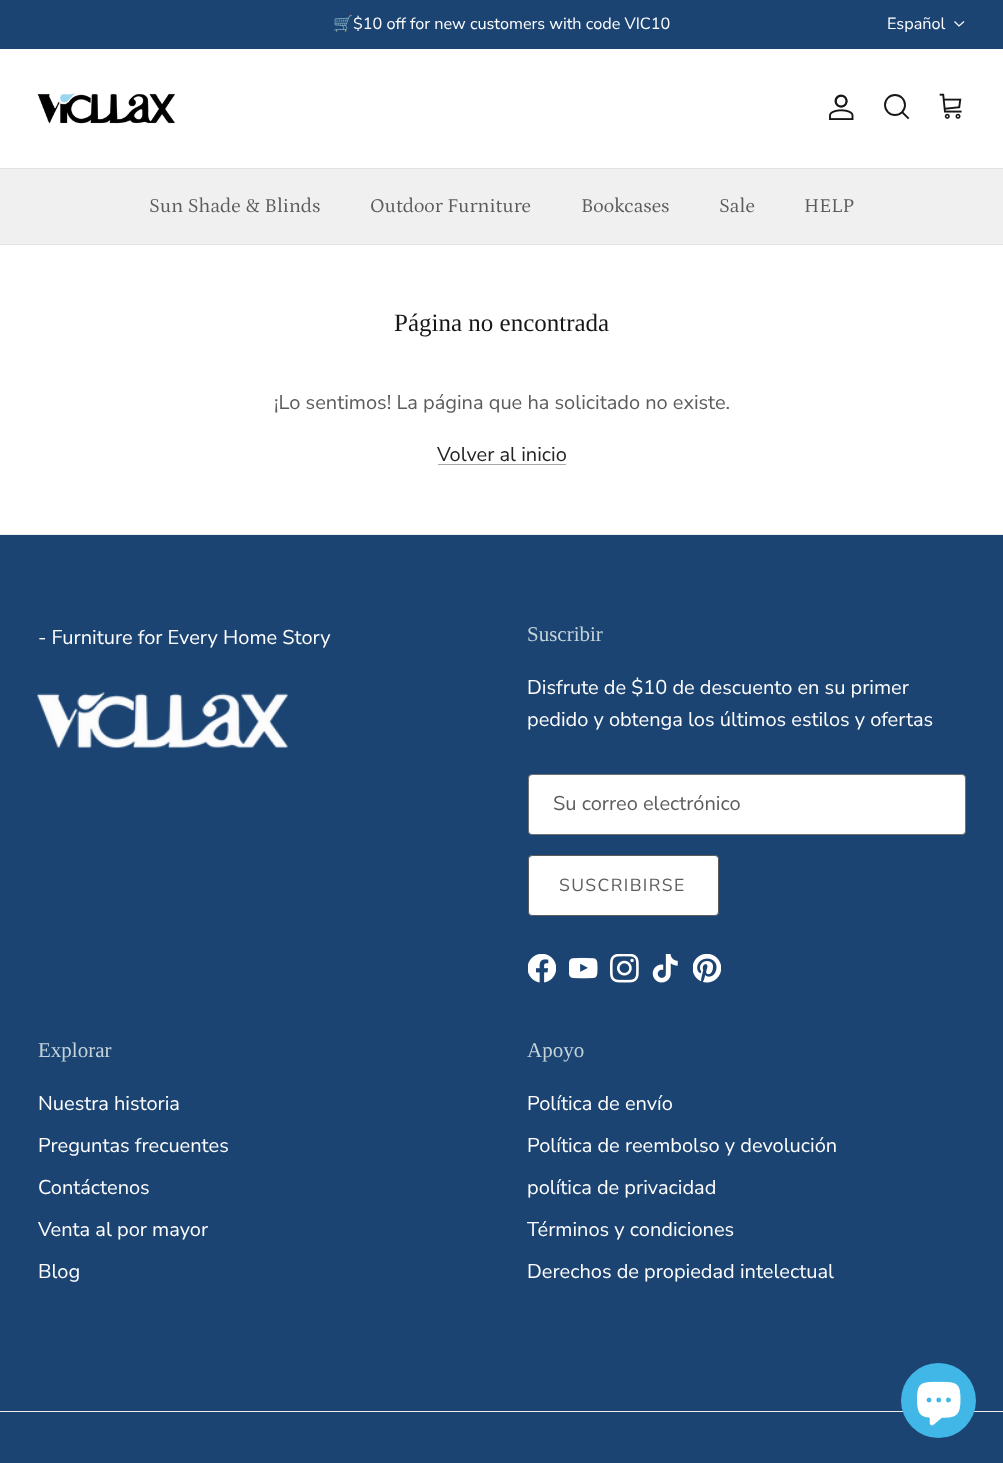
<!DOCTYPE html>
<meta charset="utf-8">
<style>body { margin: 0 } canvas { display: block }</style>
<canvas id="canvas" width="1003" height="1463"></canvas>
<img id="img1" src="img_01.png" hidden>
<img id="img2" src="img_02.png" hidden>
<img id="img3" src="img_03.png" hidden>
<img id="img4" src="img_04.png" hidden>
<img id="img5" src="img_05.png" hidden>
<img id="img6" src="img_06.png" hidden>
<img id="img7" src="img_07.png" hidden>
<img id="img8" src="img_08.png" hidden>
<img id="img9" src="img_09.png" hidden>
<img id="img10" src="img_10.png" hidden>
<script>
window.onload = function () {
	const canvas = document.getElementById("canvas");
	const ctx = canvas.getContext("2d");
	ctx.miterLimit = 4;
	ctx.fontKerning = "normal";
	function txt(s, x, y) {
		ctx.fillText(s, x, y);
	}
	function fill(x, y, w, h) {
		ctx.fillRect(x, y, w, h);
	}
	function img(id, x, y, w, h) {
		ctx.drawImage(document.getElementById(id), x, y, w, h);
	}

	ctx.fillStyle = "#FFFFFF";
	fill(0, 0, 1003, 1463);
	ctx.fillStyle = "#1C4473";
	fill(0, 0, 1003, 49);
	ctx.beginPath();
	ctx.moveTo(964, 21.5);
	ctx.lineTo(959, 26);
	ctx.lineTo(954.5, 21.5);
	ctx.strokeStyle = "#FFFFFF";
	ctx.lineWidth = 1.2;
	ctx.stroke();
	ctx.fillStyle = "#DFE3E8";
	fill(0, 168, 1003, 1);
	img("img1", 37, 92, 138, 32);
	img("img2", 829, 94, 25, 26);
	ctx.beginPath();
	ctx.arc(895, 105, 10, 0, Math.PI * 2);
	ctx.strokeStyle = "#171717";
	ctx.lineWidth = 1.9;
	ctx.stroke();
	ctx.beginPath();
	ctx.moveTo(902.5, 112.5);
	ctx.lineTo(908, 118);
	ctx.lineCap = "square";
	ctx.stroke();
	img("img3", 939, 93, 23, 26);
	fill(0, 244, 1003, 1);
	ctx.fillStyle = "#F0F0F0";
	fill(0, 169, 1003, 75);
	ctx.fillStyle = "#A7A7A7";
	fill(438, 464, 128, 1);
	ctx.fillStyle = "#1C4473";
	fill(0, 535, 1003, 928);
	ctx.fillStyle = "#EEEEEE";
	fill(0, 534, 1003, 1);
	img("img4", 37, 692, 251, 56);
	ctx.fillStyle = "#FFFFFF";
	ctx.beginPath();
	ctx.roundRect(528.5, 774.5, 437, 60, 3.5);
	ctx.fill();
	ctx.strokeStyle = "#717171";
	ctx.lineWidth = 1;
	ctx.stroke();
	ctx.beginPath();
	ctx.roundRect(528.5, 855.5, 190, 60, 3.5);
	ctx.fill();
	ctx.strokeStyle = "#5C5C5C";
	ctx.stroke();
	img("img5", 528, 954, 28, 29);
	img("img6", 569, 957, 29, 22);
	img("img7", 610, 954, 29, 29);
	img("img8", 652, 954, 26, 29);
	img("img9", 693, 954, 28, 29);
	ctx.fillStyle = "#EEEEEE";
	fill(0, 1411, 1003, 1);
	ctx.fillStyle = "#40B7E7";
	ctx.beginPath();
	ctx.arc(938.5, 1400.5, 37.5, 0, Math.PI * 2);
	ctx.fill();
	img("img10", 917, 1381, 44, 45);
	ctx.font = "16.25px Noto Color Emoji";
	ctx.fillStyle = "#FFFFFF";
	txt("🛒", 333, 29);
	ctx.font = "16.25px Nunito Sans";
	txt("$10 off for new customers with code VIC10", 353, 29);
	txt("Español", 887, 29);
	ctx.font = "20px Petrona";
	ctx.fillStyle = "#5C5C5C";
	txt("Sun Shade & Blinds", 149, 212);
	txt("Outdoor Furniture", 370, 212);
	txt("Bookcases", 581, 212);
	txt("Sale", 719, 212);
	txt("HELP", 804, 212);
	ctx.font = "25px Liberation Serif";
	ctx.fillStyle = "#171717";
	txt("Página no encontrada", 394, 331);
	ctx.font = "20px Nunito Sans";
	ctx.fillStyle = "#5C5C5C";
	txt("¡Lo sentimos! La página que ha solicitado no existe.", 274, 409);
	ctx.fillStyle = "#232323";
	txt("Volver al inicio", 437, 461);
	ctx.fillStyle = "#FFFFFF";
	txt("- Furniture for Every Home Story", 38, 644);
	ctx.font = "21px Liberation Serif";
	ctx.fillStyle = "#C3D3DA";
	txt("Suscribir", 527, 641);
	ctx.font = "20px Nunito Sans";
	ctx.fillStyle = "#FFFFFF";
	txt("Disfrute de $10 de descuento en su primer", 527, 694);
	txt("pedido y obtenga los últimos estilos y ofertas", 527, 726);
	ctx.fillStyle = "#5C5C5C";
	txt("Su correo electrónico", 553, 810);
	ctx.letterSpacing = "1.4px";
	ctx.font = "17.5px Nunito Sans";
	txt("SUSCRIBIRSE", 559, 891);
	ctx.letterSpacing = "0px";
	ctx.font = "21px Liberation Serif";
	ctx.fillStyle = "#C3D3DA";
	txt("Explorar", 38, 1057);
	ctx.font = "20px Nunito Sans";
	ctx.fillStyle = "#FFFFFF";
	txt("Nuestra historia", 38, 1110);
	txt("Preguntas frecuentes", 38, 1152);
	txt("Contáctenos", 38, 1194);
	txt("Venta al por mayor", 38, 1236);
	txt("Blog", 38, 1278);
	ctx.font = "21px Liberation Serif";
	ctx.fillStyle = "#C3D3DA";
	txt("Apoyo", 527, 1057);
	ctx.font = "20px Nunito Sans";
	ctx.fillStyle = "#FFFFFF";
	txt("Política de envío", 527, 1110);
	txt("Política de reembolso y devolución", 527, 1152);
	txt("política de privacidad", 527, 1194);
	txt("Términos y condiciones", 527, 1236);
	txt("Derechos de propiedad intelectual", 527, 1278);
};
</script>
